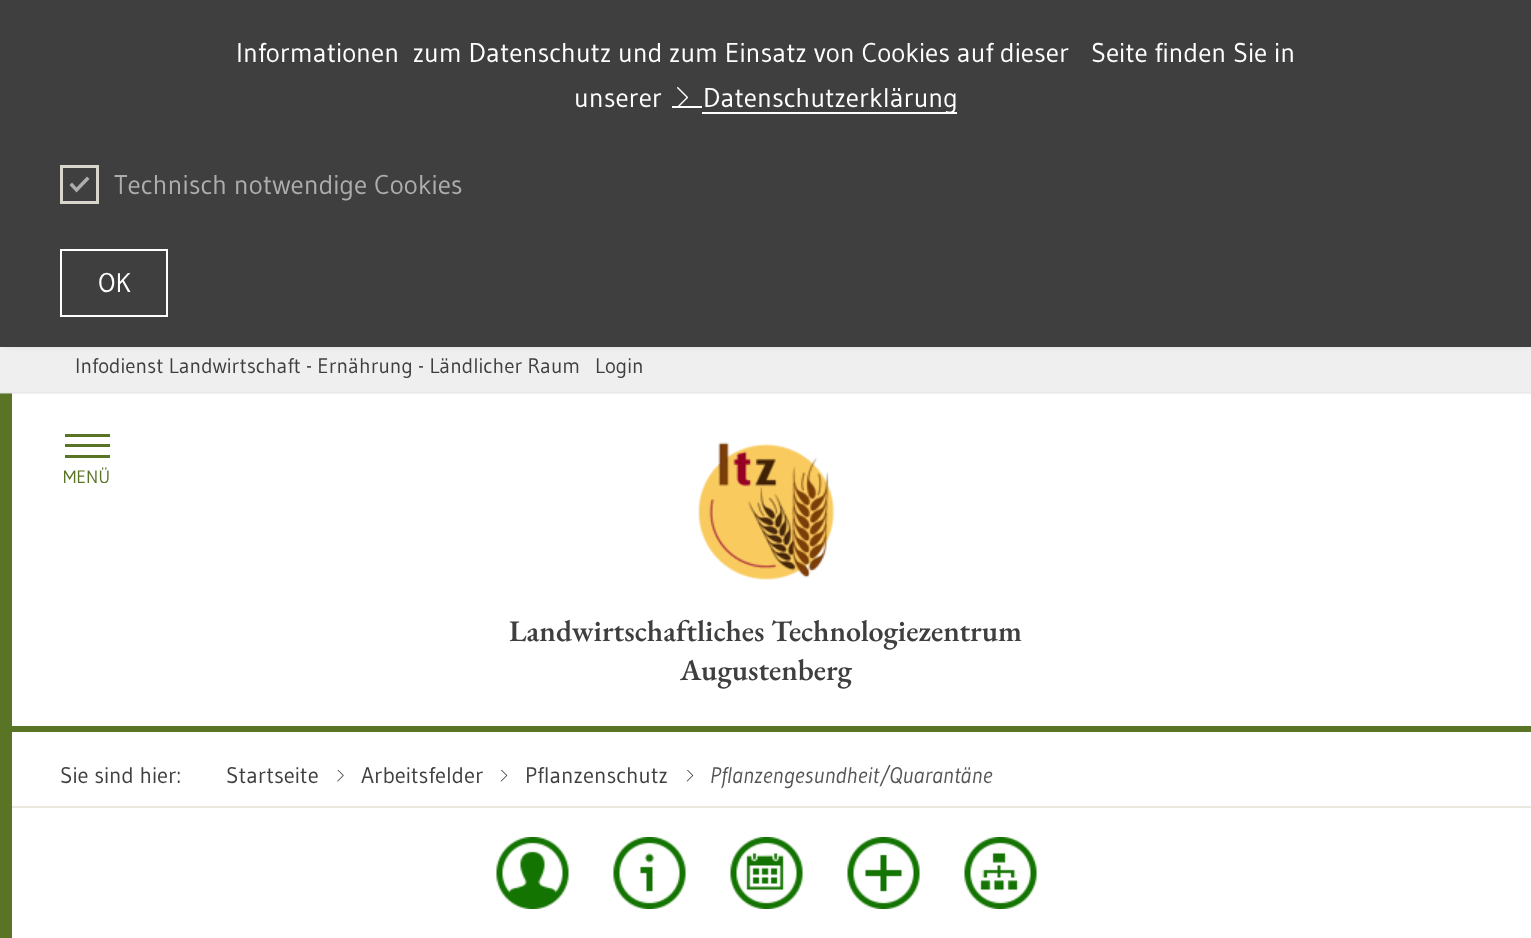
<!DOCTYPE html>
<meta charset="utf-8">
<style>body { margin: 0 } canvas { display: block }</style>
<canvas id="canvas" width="1531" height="938"></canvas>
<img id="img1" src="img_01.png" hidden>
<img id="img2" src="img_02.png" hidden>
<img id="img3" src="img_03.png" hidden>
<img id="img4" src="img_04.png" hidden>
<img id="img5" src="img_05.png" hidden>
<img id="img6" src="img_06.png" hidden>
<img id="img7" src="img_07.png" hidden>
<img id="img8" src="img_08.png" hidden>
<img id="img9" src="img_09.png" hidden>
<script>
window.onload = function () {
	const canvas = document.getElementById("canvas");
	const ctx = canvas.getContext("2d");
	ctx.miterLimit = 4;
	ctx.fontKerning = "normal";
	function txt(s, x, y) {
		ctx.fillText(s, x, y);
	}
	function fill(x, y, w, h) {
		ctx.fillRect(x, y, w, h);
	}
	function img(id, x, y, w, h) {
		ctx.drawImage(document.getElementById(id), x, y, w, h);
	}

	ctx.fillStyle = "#FFFFFF";
	fill(0, 0, 1531, 938);
	ctx.fillStyle = "#F0F0F0";
	fill(12, 393, 1519, 1);
	ctx.fillStyle = "#EFEFEF";
	fill(0, 347, 1531, 45);
	ctx.fillStyle = "rgba(0, 0, 0, 0.15)";
	ctx.filter = "blur(4px)";
	ctx.beginPath();
	ctx.rect(2, 0, 1528, 344);
	ctx.fill();
	ctx.filter = "none";
	ctx.fillStyle = "#3F3F3F";
	fill(0, 0, 1531, 347);
	ctx.save();
	ctx.beginPath();
	ctx.rect(702, 81, 255, 33);
	ctx.clip();
	ctx.fillStyle = "#FFFFFF";
	ctx.beginPath();
	ctx.moveTo(554, -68);
	ctx.lineTo(1106, -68);
	ctx.lineTo(1106, 262);
	ctx.lineTo(554, 262);
	ctx.closePath();
	ctx.moveTo(702, 76);
	ctx.lineTo(957, 76);
	ctx.bezierCurveTo(958, 76, 958, 77, 958, 78);
	ctx.lineTo(958, 111);
	ctx.bezierCurveTo(958, 112, 958, 112, 957, 112);
	ctx.lineTo(702, 112);
	ctx.bezierCurveTo(701, 112, 700, 112, 700, 111);
	ctx.lineTo(700, 78);
	ctx.bezierCurveTo(700, 77, 701, 76, 702, 76);
	ctx.closePath();
	ctx.fill("evenodd");
	ctx.restore();
	ctx.save();
	ctx.beginPath();
	ctx.rect(672, 87, 30, 21);
	ctx.clip();
	ctx.fillStyle = "#FFFFFF";
	ctx.beginPath();
	ctx.moveTo(524, -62);
	ctx.lineTo(850, -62);
	ctx.lineTo(850, 256);
	ctx.lineTo(524, 256);
	ctx.closePath();
	ctx.moveTo(672, 82);
	ctx.lineTo(702, 82);
	ctx.bezierCurveTo(703, 82, 704, 83, 704, 84);
	ctx.lineTo(704, 105);
	ctx.bezierCurveTo(704, 106, 703, 106, 702, 106);
	ctx.lineTo(672, 106);
	ctx.bezierCurveTo(671, 106, 670, 106, 670, 105);
	ctx.lineTo(670, 84);
	ctx.bezierCurveTo(670, 83, 671, 82, 672, 82);
	ctx.closePath();
	ctx.fill("evenodd");
	ctx.restore();
	img("img1", 677, 87, 12, 19);
	ctx.strokeStyle = "#D8D6CD";
	ctx.lineWidth = 3;
	ctx.strokeRect(61.5, 166.5, 36, 36);
	ctx.fillStyle = "#ADADAD";
	ctx.beginPath();
	ctx.moveTo(87, 176.5);
	ctx.lineTo(89.5, 179);
	ctx.lineTo(76.5, 192.5);
	ctx.lineTo(69.5, 185);
	ctx.lineTo(72, 182.5);
	ctx.lineTo(76.5, 187.5);
	ctx.closePath();
	ctx.fill();
	ctx.strokeStyle = "#FFFFFF";
	ctx.lineWidth = 2;
	ctx.strokeRect(61, 250, 106, 66);
	ctx.fillStyle = "#597425";
	fill(0, 394, 12, 544);
	ctx.fillStyle = "#9DAA83";
	fill(0, 393, 12, 1);
	ctx.fillStyle = "#E8E8E8";
	fill(0, 392, 1531, 1);
	ctx.fillStyle = "#597425";
	fill(12, 726, 1519, 6);
	fill(65, 444, 45, 3);
	fill(65, 434, 45, 3);
	fill(65, 455, 45, 3);
	img("img2", 697, 442, 138, 139);
	img("img3", 337, 770, 7, 12);
	img("img4", 500, 770, 8, 12);
	img("img4", 686, 770, 8, 12);
	ctx.fillStyle = "#EAE8DE";
	fill(12, 806, 1519, 2);
	img("img5", 496, 837, 73, 72);
	img("img6", 613, 837, 73, 72);
	img("img7", 730, 837, 73, 72);
	img("img8", 847, 837, 73, 72);
	img("img9", 964, 837, 73, 72);
	ctx.font = "27px Gudea";
	ctx.fillStyle = "#FFFFFF";
	txt("Informationen  zum Datenschutz und zum Einsatz von Cookies auf dieser", 236, 62);
	txt("Seite finden Sie in", 1091, 62);
	txt("unserer", 574, 107);
	txt("Datenschutzerklärung", 703, 107);
	ctx.fillStyle = "#ADADAD";
	txt("Technisch notwendige Cookies", 114, 194);
	ctx.fillStyle = "#FFFFFF";
	txt("OK", 98, 292);
	ctx.font = "21px Gudea";
	ctx.fillStyle = "#3F3F3F";
	txt("Infodienst Landwirtschaft - Ernährung - Ländlicher Raum", 75, 373);
	txt("Login", 595, 373);
	ctx.font = "18px Gudea";
	ctx.fillStyle = "#597425";
	txt("MENÜ", 63, 483);
	ctx.font = "600 30px EB Garamond";
	ctx.fillStyle = "#3F3F3F";
	txt("Landwirtschaftliches Technologiezentrum", 509, 641);
	txt("Augustenberg", 680, 680);
	ctx.font = "22.5px Gudea";
	txt("Sie sind hier:", 60, 783);
	txt("Startseite", 226, 783);
	txt("Arbeitsfelder", 361, 783);
	txt("Pflanzenschutz", 525, 783);
	ctx.font = "italic 22.5px Gudea";
	ctx.fillStyle = "#555555";
	txt("Pflanzengesundheit/Quarantäne", 710, 783);
};
</script>
